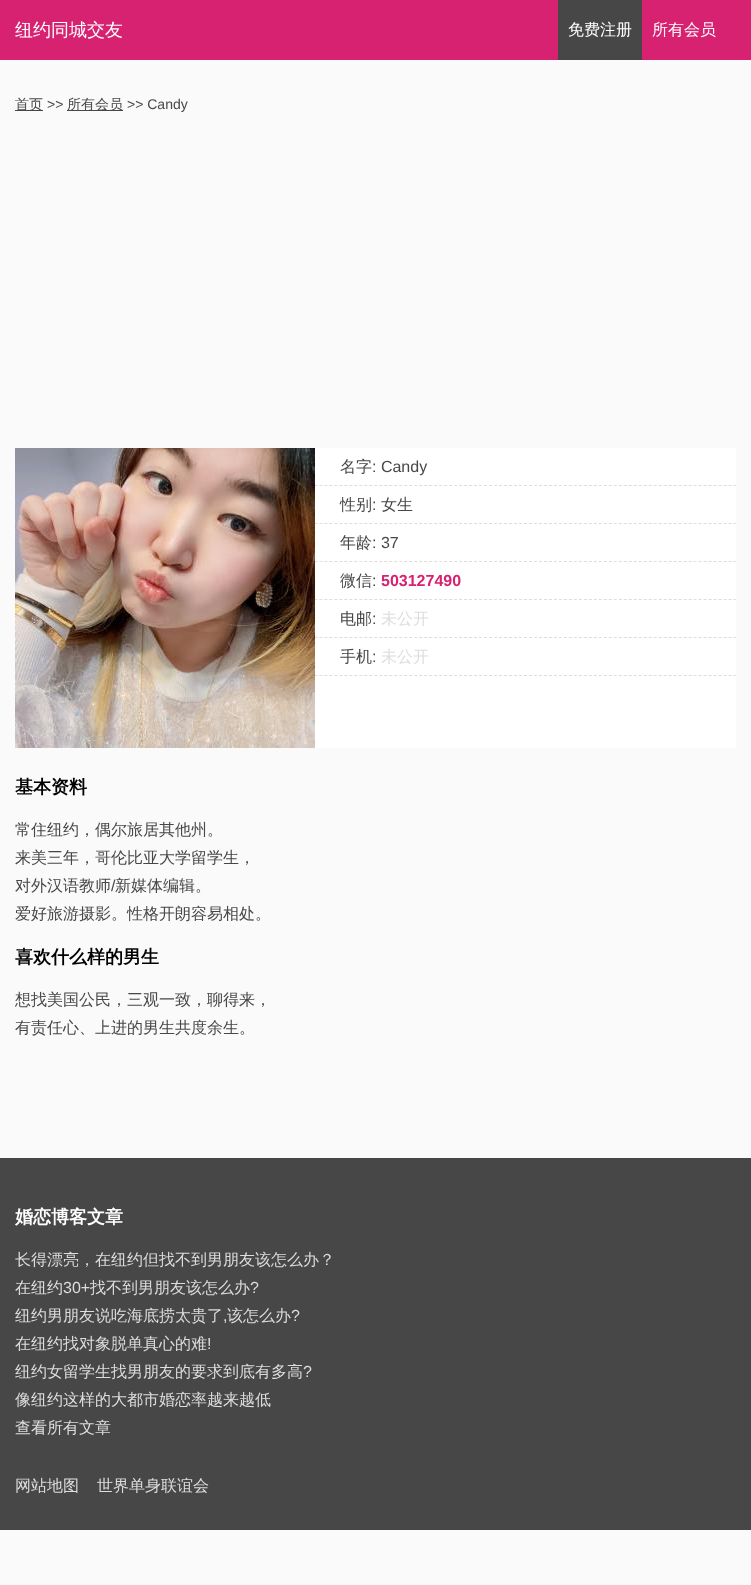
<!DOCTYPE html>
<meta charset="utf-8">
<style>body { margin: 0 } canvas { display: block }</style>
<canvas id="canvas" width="751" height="1585"></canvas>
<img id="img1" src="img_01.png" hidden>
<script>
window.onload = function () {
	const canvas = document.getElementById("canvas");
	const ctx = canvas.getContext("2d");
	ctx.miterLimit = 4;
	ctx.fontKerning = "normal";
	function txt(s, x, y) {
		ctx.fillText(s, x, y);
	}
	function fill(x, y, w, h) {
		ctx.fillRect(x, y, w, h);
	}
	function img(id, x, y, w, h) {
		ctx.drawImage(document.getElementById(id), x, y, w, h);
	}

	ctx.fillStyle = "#FAFAFA";
	fill(0, 0, 751, 1585);
	ctx.fillStyle = "#D72171";
	fill(0, 0, 751, 60);
	ctx.fillStyle = "#474747";
	fill(558, 0, 84, 60);
	fill(15, 110, 28, 1);
	fill(67, 110, 56, 1);
	ctx.fillStyle = "#FFFFFF";
	fill(315, 448, 421, 300);
	ctx.beginPath();
	ctx.moveTo(15, 485.5);
	ctx.lineTo(736, 485.5);
	ctx.strokeStyle = "#DDDDDD";
	ctx.setLineDash([3, 1.99]);
	ctx.stroke();
	ctx.beginPath();
	ctx.moveTo(15, 523.5);
	ctx.lineTo(736, 523.5);
	ctx.stroke();
	ctx.beginPath();
	ctx.moveTo(15, 561.5);
	ctx.lineTo(736, 561.5);
	ctx.stroke();
	ctx.beginPath();
	ctx.moveTo(15, 599.5);
	ctx.lineTo(736, 599.5);
	ctx.stroke();
	ctx.beginPath();
	ctx.moveTo(15, 637.5);
	ctx.lineTo(736, 637.5);
	ctx.stroke();
	ctx.beginPath();
	ctx.moveTo(15, 675.5);
	ctx.lineTo(736, 675.5);
	ctx.stroke();
	img("img1", 15, 448, 300, 300);
	ctx.fillStyle = "#474747";
	fill(0, 1158, 751, 372);
	ctx.font = "500 18px WenQuanYi Zen Hei";
	ctx.fillStyle = "#FFFFFF";
	txt("纽约同城交友", 15, 36);
	ctx.font = "500 16px WenQuanYi Zen Hei";
	txt("免费注册", 568, 35);
	txt("所有会员", 652, 35);
	ctx.font = "500 14px WenQuanYi Zen Hei";
	ctx.fillStyle = "#474747";
	txt("首页", 15, 109);
	ctx.font = "14px Liberation Sans";
	txt(">>", 47, 109);
	ctx.font = "500 14px WenQuanYi Zen Hei";
	txt("所有会员", 67, 109);
	ctx.font = "14px Liberation Sans";
	txt(">> Candy", 127, 109);
	ctx.font = "500 16px WenQuanYi Zen Hei";
	txt("名字", 340, 472);
	ctx.font = "16px Liberation Sans";
	txt(": Candy", 372, 472);
	ctx.font = "500 16px WenQuanYi Zen Hei";
	txt("性别", 340, 510);
	ctx.font = "16px Liberation Sans";
	txt(":", 372, 510);
	ctx.font = "500 16px WenQuanYi Zen Hei";
	txt("女生", 381, 510);
	txt("年龄", 340, 548);
	ctx.font = "16px Liberation Sans";
	txt(": 37", 372, 548);
	ctx.font = "500 16px WenQuanYi Zen Hei";
	txt("微信", 340, 586);
	ctx.font = "16px Liberation Sans";
	txt(":", 372, 586);
	ctx.font = "bold 16px Liberation Sans";
	ctx.fillStyle = "#D72171";
	txt("503127490", 381, 586);
	ctx.font = "500 16px WenQuanYi Zen Hei";
	ctx.fillStyle = "#474747";
	txt("电邮", 340, 624);
	ctx.font = "16px Liberation Sans";
	txt(":", 372, 624);
	ctx.font = "500 16px WenQuanYi Zen Hei";
	ctx.fillStyle = "#DDDDDD";
	txt("未公开", 381, 624);
	ctx.fillStyle = "#474747";
	txt("手机", 340, 662);
	ctx.font = "16px Liberation Sans";
	txt(":", 372, 662);
	ctx.font = "500 16px WenQuanYi Zen Hei";
	ctx.fillStyle = "#DDDDDD";
	txt("未公开", 381, 662);
	ctx.font = "bold 18px WenQuanYi Zen Hei";
	ctx.fillStyle = "#000000";
	txt("基本资料", 15, 793);
	ctx.font = "500 16px WenQuanYi Zen Hei";
	ctx.fillStyle = "#474747";
	txt("常住纽约，偶尔旅居其他州。", 15, 835);
	txt("来美三年，哥伦比亚大学留学生，", 15, 863);
	txt("对外汉语教师", 15, 891);
	ctx.font = "16px Liberation Sans";
	txt("/", 111, 891);
	ctx.font = "500 16px WenQuanYi Zen Hei";
	txt("新媒体编辑。", 115, 891);
	txt("爱好旅游摄影。性格开朗容易相处。", 15, 919);
	ctx.font = "bold 18px WenQuanYi Zen Hei";
	ctx.fillStyle = "#000000";
	txt("喜欢什么样的男生", 15, 963);
	ctx.font = "500 16px WenQuanYi Zen Hei";
	ctx.fillStyle = "#474747";
	txt("想找美国公民，三观一致，聊得来，", 15, 1005);
	txt("有责任心、上进的男生共度余生。", 15, 1033);
	ctx.font = "bold 18px WenQuanYi Zen Hei";
	ctx.fillStyle = "#FFFFFF";
	txt("婚恋博客文章", 15, 1223);
	ctx.font = "500 16px WenQuanYi Zen Hei";
	ctx.fillStyle = "#DDDDDD";
	txt("长得漂亮，在纽约但找不到男朋友该怎么办？", 15, 1265);
	txt("在纽约", 15, 1293);
	ctx.font = "16px Liberation Sans";
	txt("30+", 63, 1293);
	ctx.font = "500 16px WenQuanYi Zen Hei";
	txt("找不到男朋友该怎么办", 90, 1293);
	ctx.font = "16px Liberation Sans";
	txt("?", 250, 1293);
	ctx.font = "500 16px WenQuanYi Zen Hei";
	txt("纽约男朋友说吃海底捞太贵了", 15, 1321);
	txt("该怎么办", 227, 1321);
	ctx.font = "16px Liberation Sans";
	txt("?", 291, 1321);
	txt(",", 223, 1321);
	ctx.font = "500 16px WenQuanYi Zen Hei";
	txt("在纽约找对象脱单真心的难", 15, 1349);
	ctx.font = "16px Liberation Sans";
	txt("!", 207, 1349);
	ctx.font = "500 16px WenQuanYi Zen Hei";
	txt("纽约女留学生找男朋友的要求到底有多高", 15, 1377);
	ctx.font = "16px Liberation Sans";
	txt("?", 303, 1377);
	ctx.font = "500 16px WenQuanYi Zen Hei";
	txt("像纽约这样的大都市婚恋率越来越低", 15, 1405);
	txt("查看所有文章", 15, 1433);
	txt("网站地图", 15, 1491);
	txt("世界单身联谊会", 97, 1491);
};
</script>
